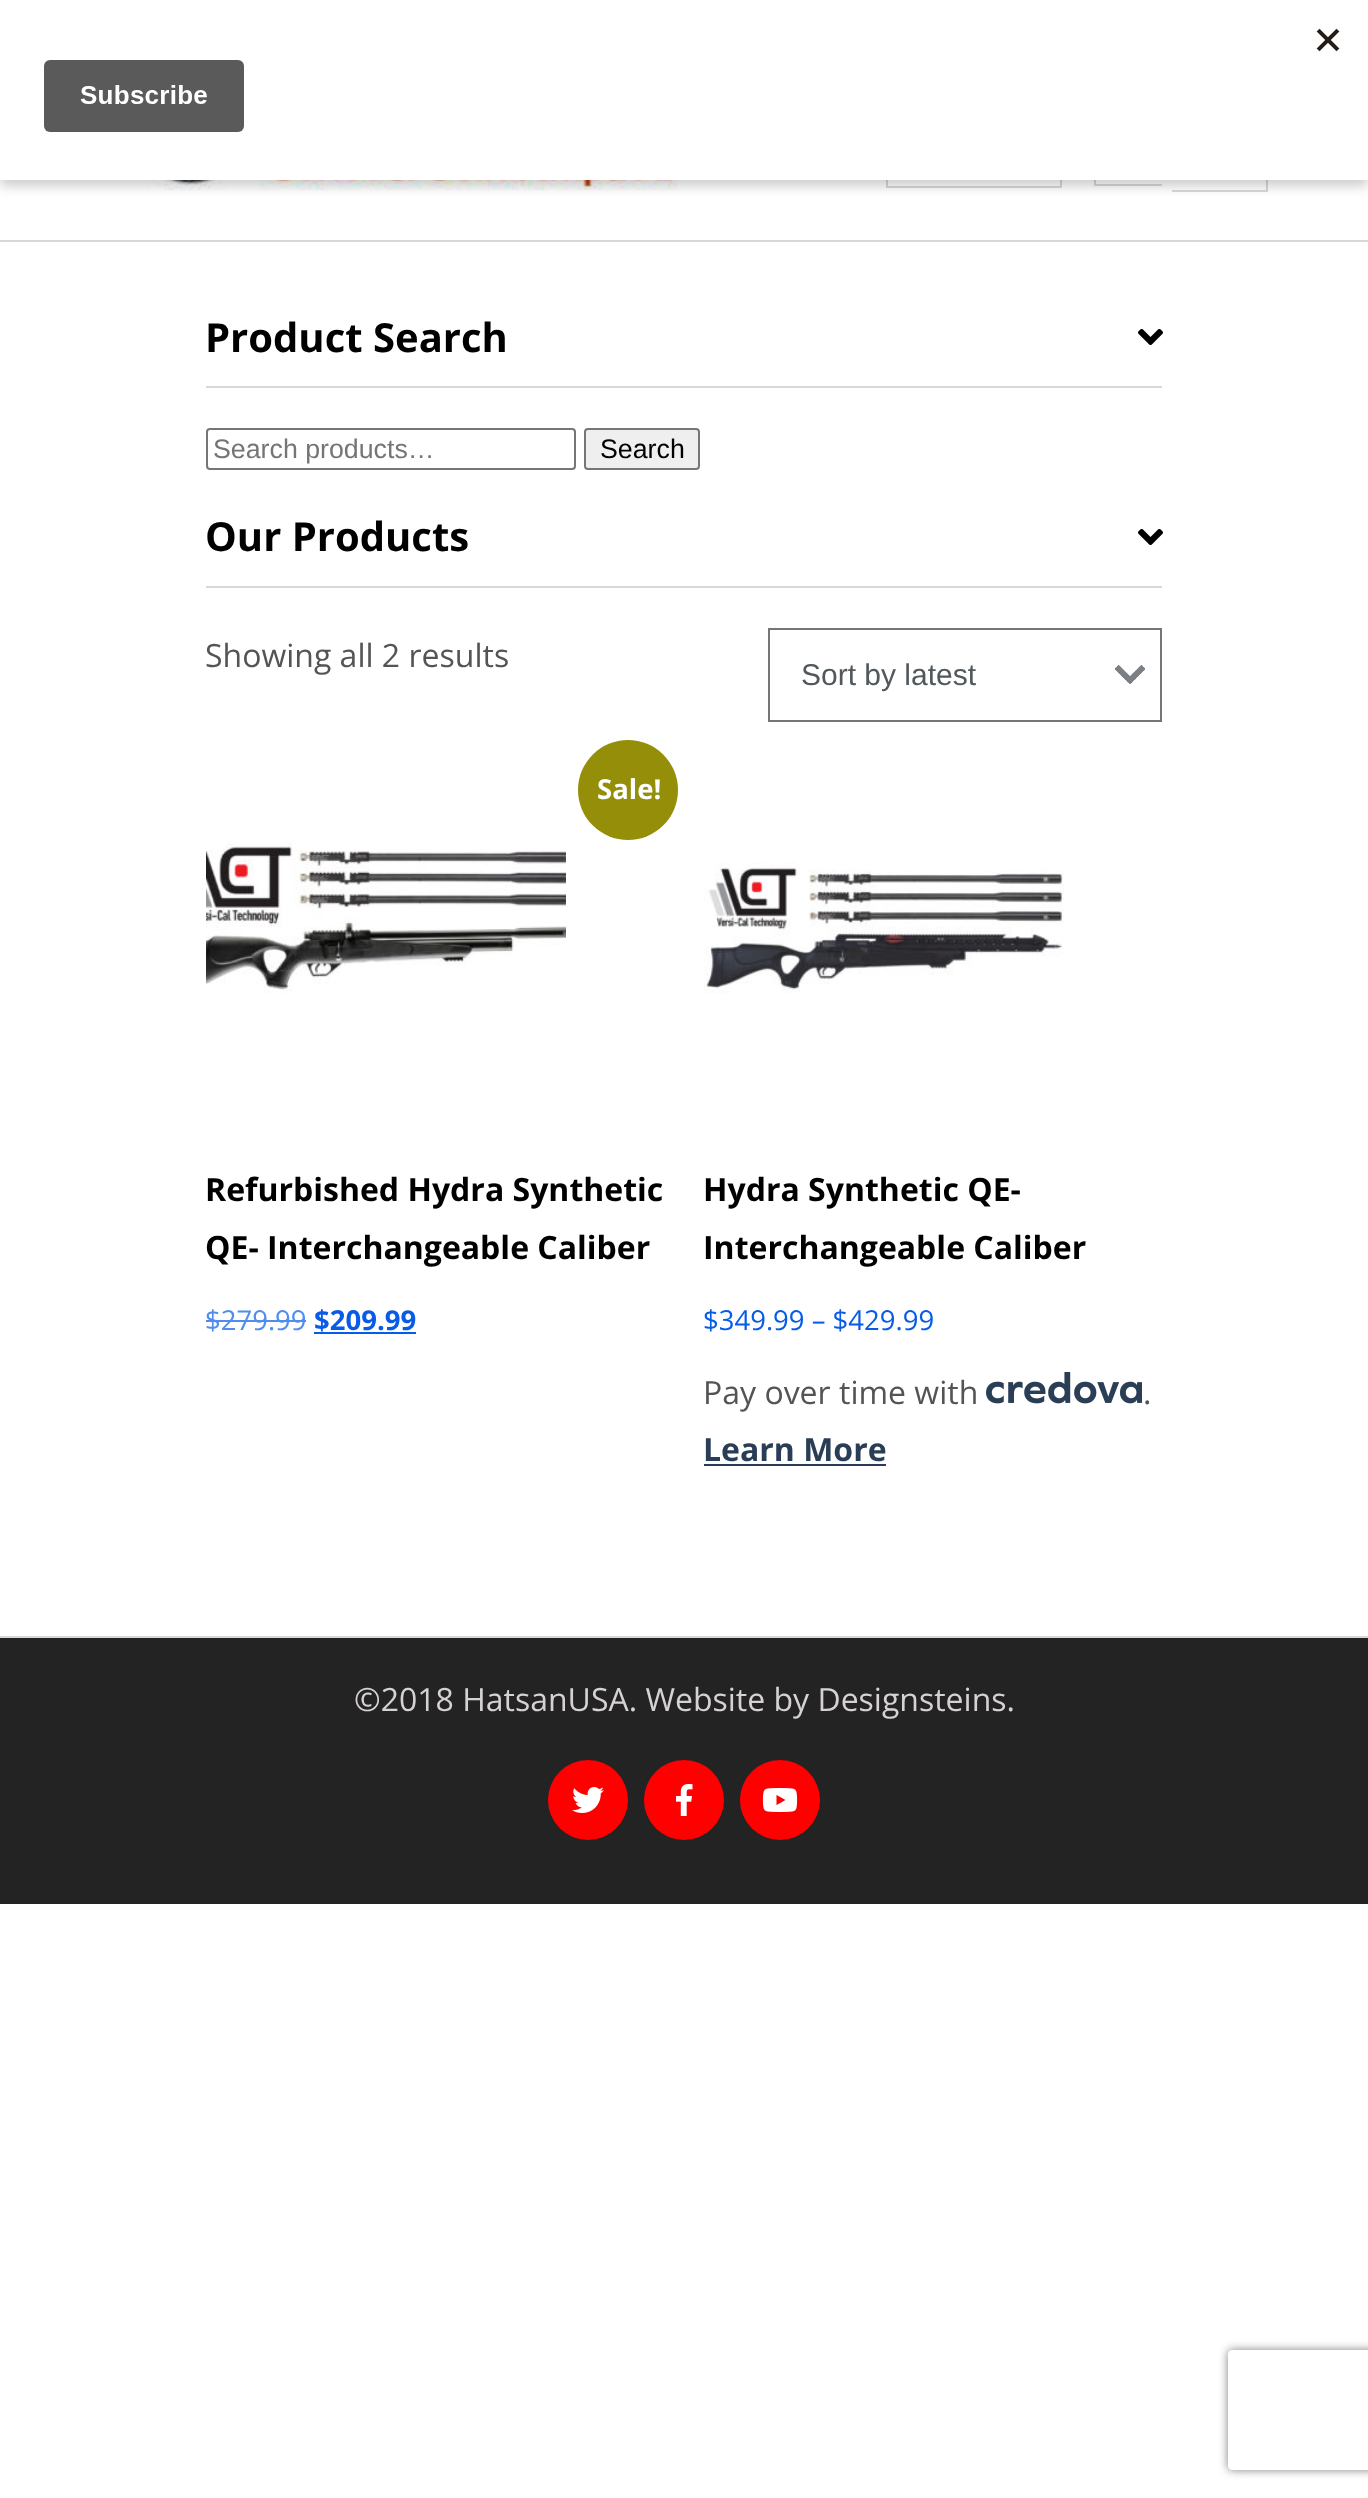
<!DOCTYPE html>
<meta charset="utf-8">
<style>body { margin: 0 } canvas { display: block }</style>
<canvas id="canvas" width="1368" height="2498"></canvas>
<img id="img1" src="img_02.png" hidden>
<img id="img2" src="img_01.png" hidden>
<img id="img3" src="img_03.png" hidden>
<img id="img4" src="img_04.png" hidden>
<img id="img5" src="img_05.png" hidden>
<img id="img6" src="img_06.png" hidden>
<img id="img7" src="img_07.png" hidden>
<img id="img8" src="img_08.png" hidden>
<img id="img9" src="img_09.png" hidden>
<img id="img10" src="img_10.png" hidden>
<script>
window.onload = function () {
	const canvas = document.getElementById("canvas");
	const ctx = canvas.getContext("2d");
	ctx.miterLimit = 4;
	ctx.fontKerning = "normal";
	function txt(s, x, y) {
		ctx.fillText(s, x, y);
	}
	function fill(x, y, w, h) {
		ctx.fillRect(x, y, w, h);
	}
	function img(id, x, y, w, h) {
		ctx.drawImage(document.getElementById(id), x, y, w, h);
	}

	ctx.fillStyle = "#FFFFFF";
	fill(0, 0, 1368, 2498);
	img("img1", 132, 180, 560, 10);
	ctx.strokeStyle = "#D8D8D8";
	ctx.lineWidth = 2;
	ctx.strokeRect(887, 109, 174, 78);
	ctx.fillStyle = "#D8D8D8";
	fill(1094, 184, 68, 2);
	fill(1094, 180, 2, 6);
	fill(1266, 180, 2, 12);
	fill(1172, 190, 96, 2);
	ctx.fillStyle = "rgba(0, 0, 0, 0.2)";
	ctx.filter = "blur(6px)";
	ctx.beginPath();
	ctx.rect(0, 6, 1368, 180);
	ctx.fill();
	ctx.filter = "none";
	ctx.fillStyle = "#FFFFFF";
	fill(0, 0, 1368, 180);
	img("img2", 44, 28, 1296, 104);
	ctx.fillStyle = "#D8D8D8";
	fill(0, 240, 1368, 2);
	fill(206, 386, 956, 2);
	img("img3", 1138, 329, 25, 16);
	ctx.beginPath();
	ctx.roundRect(207, 429, 368, 40, 3);
	ctx.strokeStyle = "#767676";
	ctx.stroke();
	ctx.fillStyle = "#EFEFEF";
	ctx.beginPath();
	ctx.roundRect(585, 429, 114, 40, 3);
	ctx.fill();
	ctx.stroke();
	ctx.fillStyle = "#D8D8D8";
	fill(206, 586, 956, 2);
	img("img3", 1138, 529, 25, 16);
	img("img4", 1115, 665, 30, 19);
	ctx.strokeRect(769, 629, 392, 92);
	ctx.fillStyle = "#958E09";
	ctx.beginPath();
	ctx.arc(628, 790, 50, 0, Math.PI * 2);
	ctx.fill();
	img("img5", 206, 841, 360, 153);
	ctx.fillStyle = "#518CEE";
	fill(206, 1320, 100, 2);
	ctx.fillStyle = "#075BE7";
	fill(314, 1332, 102, 2);
	img("img6", 704, 862, 360, 132);
	img("img7", 986, 1372, 156, 32);
	ctx.fillStyle = "#293E56";
	fill(704, 1464, 182, 2);
	ctx.fillStyle = "#232323";
	fill(0, 1638, 1368, 266);
	ctx.fillStyle = "#D8D8D8";
	fill(0, 1636, 1368, 2);
	ctx.fillStyle = "#FF0000";
	ctx.beginPath();
	ctx.arc(588, 1800, 40, 0, Math.PI * 2);
	ctx.fill();
	img("img8", 572, 1787, 32, 26);
	ctx.beginPath();
	ctx.arc(684, 1800, 40, 0, Math.PI * 2);
	ctx.fill();
	img("img9", 676, 1784, 17, 32);
	ctx.beginPath();
	ctx.arc(780, 1800, 40, 0, Math.PI * 2);
	ctx.fill();
	img("img10", 762, 1788, 36, 24);
	ctx.save();
	ctx.beginPath();
	ctx.moveTo(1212, 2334);
	ctx.lineTo(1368, 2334);
	ctx.lineTo(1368, 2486);
	ctx.lineTo(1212, 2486);
	ctx.closePath();
	ctx.moveTo(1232, 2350);
	ctx.lineTo(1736, 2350);
	ctx.bezierCurveTo(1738, 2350, 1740, 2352, 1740, 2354);
	ctx.lineTo(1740, 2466);
	ctx.bezierCurveTo(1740, 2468, 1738, 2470, 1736, 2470);
	ctx.lineTo(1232, 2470);
	ctx.bezierCurveTo(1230, 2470, 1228, 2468, 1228, 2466);
	ctx.lineTo(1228, 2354);
	ctx.bezierCurveTo(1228, 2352, 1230, 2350, 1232, 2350);
	ctx.closePath();
	ctx.clip("evenodd");
	ctx.fillStyle = "#808080";
	ctx.filter = "blur(5px)";
	ctx.beginPath();
	ctx.roundRect(1228, 2350, 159, 120, 4);
	ctx.fill();
	ctx.filter = "none";
	ctx.restore();
	ctx.font = "bold 40px Open Sans";
	ctx.fillStyle = "#000000";
	txt("Product Search", 205, 352);
	ctx.font = "26.75px Liberation Sans";
	ctx.fillStyle = "#757575";
	txt("Search products…", 213, 458);
	ctx.fillStyle = "#000000";
	txt("Search", 600, 458);
	ctx.font = "bold 40px Open Sans";
	txt("Our Products", 205, 551);
	ctx.font = "32px Open Sans";
	ctx.fillStyle = "#545454";
	txt("Showing all 2 results", 205, 667);
	ctx.font = "30px Liberation Sans";
	ctx.fillStyle = "#51595D";
	txt("Sort by latest", 801, 685);
	ctx.font = "bold 27.5px Open Sans";
	ctx.fillStyle = "#FFFFFF";
	txt("Sale!", 597, 799);
	ctx.font = "bold 32px Open Sans";
	ctx.fillStyle = "#000000";
	txt("Refurbished Hydra Synthetic", 205, 1201);
	txt("QE- Interchangeable Caliber", 205, 1259);
	ctx.font = "27.5px Open Sans";
	ctx.fillStyle = "#518CEE";
	txt("$279.99", 205, 1330);
	ctx.font = "bold 27.5px Open Sans";
	ctx.fillStyle = "#075BE7";
	txt("$209.99", 314, 1330);
	ctx.font = "bold 32px Open Sans";
	ctx.fillStyle = "#000000";
	txt("Hydra Synthetic QE-", 703, 1201);
	txt("Interchangeable Caliber", 703, 1259);
	ctx.font = "27.5px Open Sans";
	ctx.fillStyle = "#075BE7";
	txt("$349.99 – $429.99", 703, 1330);
	ctx.font = "32px Open Sans";
	ctx.fillStyle = "#545454";
	txt("Pay over time with", 703, 1404);
	txt(".", 1143, 1404);
	ctx.font = "bold 32px Open Sans";
	ctx.fillStyle = "#293E56";
	txt("Learn More", 703, 1461);
	ctx.font = "32px Open Sans";
	ctx.fillStyle = "#D6D2D2";
	txt("©2018 HatsanUSA. Website by Designsteins.", 354, 1711);
};
</script>
